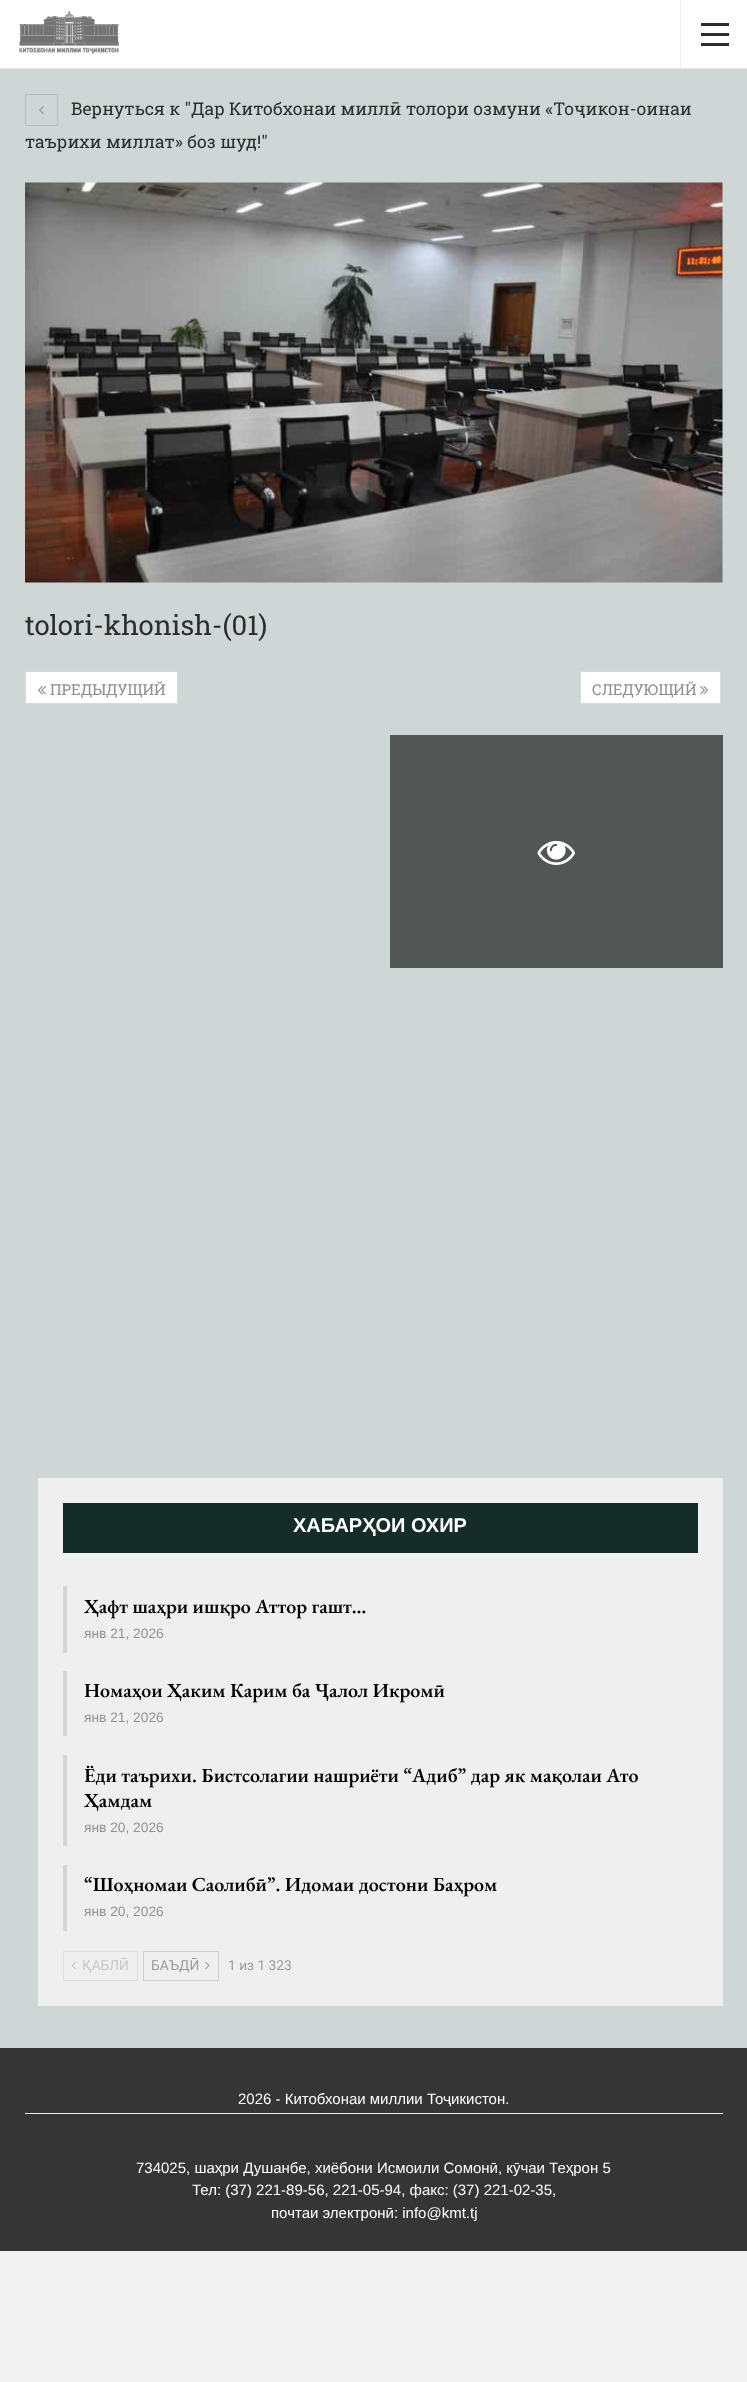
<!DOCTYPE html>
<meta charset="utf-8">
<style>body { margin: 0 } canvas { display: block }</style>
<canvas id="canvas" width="747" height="2382"></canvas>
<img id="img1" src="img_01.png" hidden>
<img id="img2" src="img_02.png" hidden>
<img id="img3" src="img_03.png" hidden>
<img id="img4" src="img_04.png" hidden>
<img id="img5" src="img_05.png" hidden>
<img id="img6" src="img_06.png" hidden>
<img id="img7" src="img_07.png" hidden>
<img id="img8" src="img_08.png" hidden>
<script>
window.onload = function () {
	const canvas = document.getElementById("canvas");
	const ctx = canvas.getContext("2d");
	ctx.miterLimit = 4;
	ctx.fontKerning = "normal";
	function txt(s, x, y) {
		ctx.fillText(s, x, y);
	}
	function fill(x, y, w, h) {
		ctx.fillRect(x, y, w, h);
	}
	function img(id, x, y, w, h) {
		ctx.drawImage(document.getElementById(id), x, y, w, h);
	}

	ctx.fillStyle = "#F3F3F3";
	fill(0, 0, 747, 2382);
	ctx.fillStyle = "#FFFFFF";
	fill(0, 0, 747, 68);
	ctx.fillStyle = "#E5E5E5";
	fill(0, 68, 747, 1);
	img("img1", 18, 7, 102, 47);
	ctx.fillStyle = "#EDEDED";
	fill(680, 0, 1, 68);
	ctx.fillStyle = "#2C2C2C";
	fill(701, 33, 28, 3);
	fill(701, 23, 28, 3);
	fill(701, 43, 28, 3);
	ctx.fillStyle = "#CED7D5";
	fill(0, 69, 747, 1979);
	ctx.strokeStyle = "#B8BEBC";
	ctx.strokeRect(25.5, 94.5, 32, 31);
	img("img2", 39, 106, 5, 9);
	img("img3", 25, 182, 698, 401);
	ctx.fillStyle = "#FFFFFF";
	ctx.beginPath();
	ctx.rect(25.5, 671.5, 152, 32);
	ctx.fill();
	ctx.strokeStyle = "#DADADA";
	ctx.stroke();
	img("img4", 38, 686, 8, 9);
	ctx.beginPath();
	ctx.rect(580.5, 671.5, 140, 32);
	ctx.fill();
	ctx.stroke();
	img("img5", 700, 686, 9, 9);
	ctx.fillStyle = "#525655";
	fill(390, 735, 333, 233);
	img("img6", 537, 840, 38, 25);
	ctx.fillStyle = "#EFEFEF";
	fill(38, 1478, 685, 528);
	ctx.fillStyle = "#162C28";
	fill(63, 1503, 635, 50);
	ctx.fillStyle = "#D5D5D5";
	fill(63, 1586, 4, 67);
	fill(63, 1671, 4, 65);
	fill(63, 1755, 4, 91);
	fill(63, 1865, 4, 66);
	ctx.strokeStyle = "#DFDFDF";
	ctx.strokeRect(63.5, 1951.5, 74, 29);
	img("img7", 71, 1961, 5, 9);
	ctx.strokeStyle = "#CECECE";
	ctx.strokeRect(143.5, 1951.5, 75, 29);
	img("img8", 205, 1961, 5, 9);
	ctx.fillStyle = "#353535";
	fill(0, 2048, 747, 203);
	ctx.fillStyle = "#EEEEEE";
	fill(25, 2113, 698, 1);
	ctx.font = "17.5px Roboto Slab";
	ctx.fillStyle = "#2D2D2D";
	txt("Вернуться к \"Дар Китобхонаи миллӣ толори озмуни «Тоҷикон-оинаи", 71, 115);
	txt("таърихи миллат» боз шуд!\"", 25, 148);
	ctx.font = "27.5px Roboto Slab";
	txt("tolori-khonish-(01)", 25, 635);
	ctx.font = "15px Roboto Slab";
	ctx.fillStyle = "#8A8F92";
	txt("ПРЕДЫДУЩИЙ", 50, 695);
	txt("СЛЕДУЮЩИЙ", 592, 695);
	ctx.font = "bold 20px Liberation Sans";
	ctx.fillStyle = "#FFFFFF";
	txt("ХАБАРҲОИ ОХИР", 293, 1532);
	ctx.font = "600 20px EB Garamond";
	ctx.fillStyle = "#000000";
	txt("Ҳафт шаҳри ишқро Аттор гашт…", 84, 1613);
	ctx.font = "13.75px Liberation Sans";
	ctx.fillStyle = "#929292";
	txt("янв 21, 2026", 84, 1638);
	ctx.font = "600 20px EB Garamond";
	ctx.fillStyle = "#000000";
	txt("Номаҳои Ҳаким Карим ба Ҷалол Икромӣ", 84, 1697);
	ctx.font = "13.75px Liberation Sans";
	ctx.fillStyle = "#929292";
	txt("янв 21, 2026", 84, 1722);
	ctx.font = "600 20px EB Garamond";
	ctx.fillStyle = "#000000";
	txt("Ёди таърихи. Бистсолагии нашриёти “Адиб” дар як мақолаи Ато", 84, 1782);
	txt("Ҳамдам", 84, 1807);
	ctx.font = "13.75px Liberation Sans";
	ctx.fillStyle = "#929292";
	txt("янв 20, 2026", 84, 1832);
	ctx.font = "600 20px EB Garamond";
	ctx.fillStyle = "#000000";
	txt("“Шоҳномаи Саолибӣ”. Идомаи достони Баҳром", 84, 1891);
	ctx.font = "13.75px Liberation Sans";
	ctx.fillStyle = "#929292";
	txt("янв 20, 2026", 84, 1916);
	ctx.font = "13.75px Roboto";
	ctx.fillStyle = "#C6C6C6";
	txt("ҚАБЛӢ", 82, 1970);
	ctx.fillStyle = "#9B9B9B";
	txt("БАЪДӢ", 151, 1970);
	txt("1 из 1 323", 228, 1970);
	ctx.font = "15px Liberation Sans";
	ctx.fillStyle = "#FFFFFF";
	txt("2026 - Китобхонаи миллии Тоҷикистон.", 238, 2104);
	txt("734025, шаҳри Душанбе, хиёбони Исмоили Сомонӣ, кӯчаи Теҳрон 5", 136, 2173);
	txt("Тел: (37) 221-89-56, 221-05-94, факс: (37) 221-02-35,", 192, 2195);
	txt("почтаи электронӣ: info@kmt.tj", 271, 2218);
};
</script>
